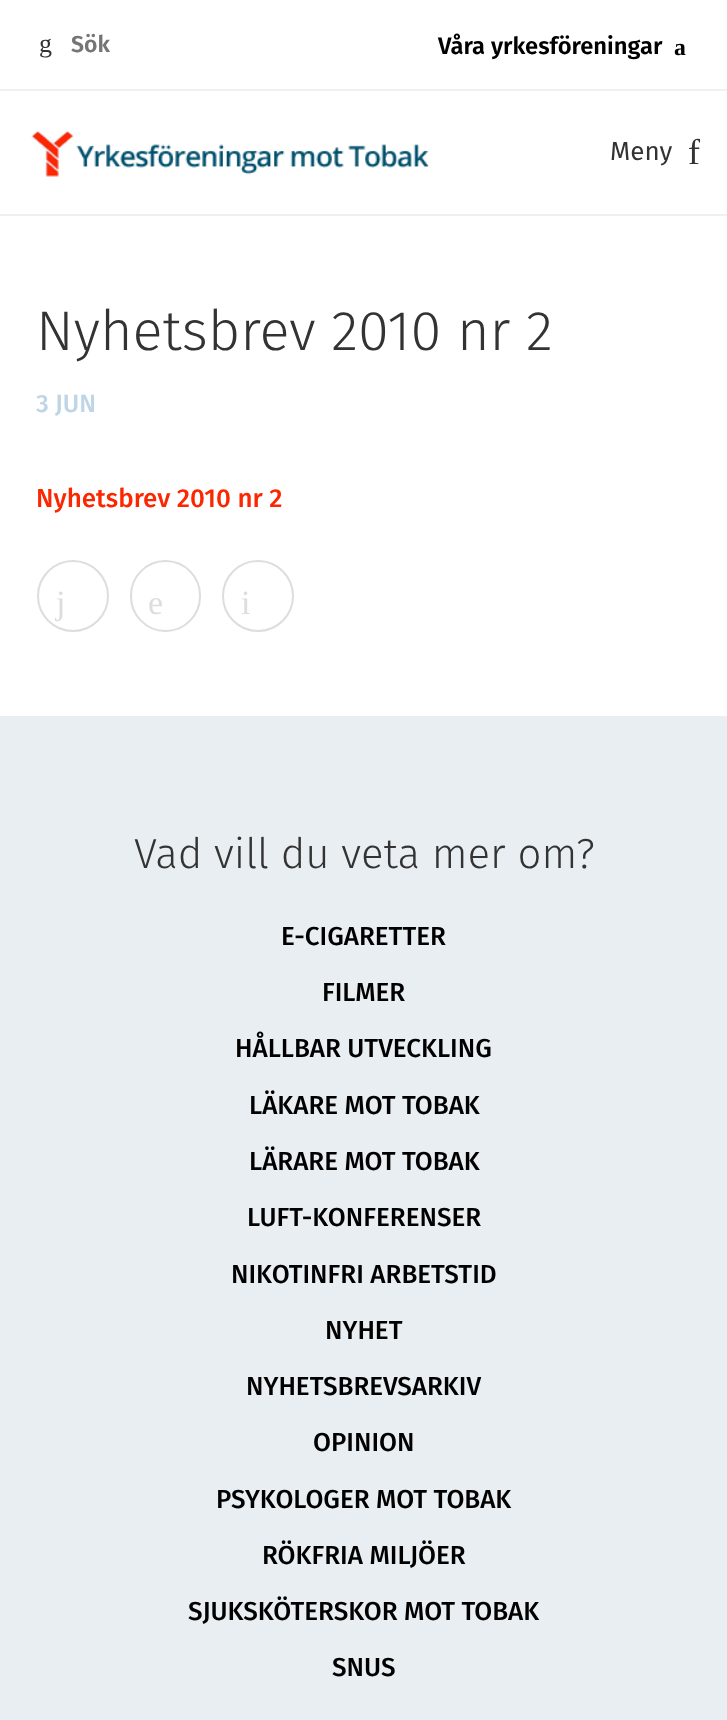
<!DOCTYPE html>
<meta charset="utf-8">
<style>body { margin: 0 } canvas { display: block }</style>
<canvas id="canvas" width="727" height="1720"></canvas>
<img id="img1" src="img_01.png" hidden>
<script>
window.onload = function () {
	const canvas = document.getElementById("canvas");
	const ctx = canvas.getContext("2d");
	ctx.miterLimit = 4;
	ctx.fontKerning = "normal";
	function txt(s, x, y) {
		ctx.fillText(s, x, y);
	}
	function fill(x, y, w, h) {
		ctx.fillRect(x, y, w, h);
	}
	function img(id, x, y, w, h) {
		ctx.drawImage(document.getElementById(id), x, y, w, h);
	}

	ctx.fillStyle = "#FFFFFF";
	fill(0, 0, 727, 1720);
	ctx.fillStyle = "#F0F0F0";
	fill(0, 214, 727, 2);
	fill(0, 89, 727, 2);
	img("img1", 31, 131, 398, 46);
	ctx.beginPath();
	ctx.arc(73, 596, 35, 0, Math.PI * 2);
	ctx.strokeStyle = "#DDDDDD";
	ctx.lineWidth = 2;
	ctx.stroke();
	ctx.beginPath();
	ctx.roundRect(131, 561, 69, 70, 34.5);
	ctx.stroke();
	ctx.beginPath();
	ctx.arc(258, 596, 35, 0, Math.PI * 2);
	ctx.stroke();
	ctx.fillStyle = "#E8EEF2";
	fill(0, 716, 727, 1004);
	ctx.font = "26px Liberation Serif";
	ctx.fillStyle = "#333333";
	txt("g", 39, 52);
	ctx.font = "600 23px Fira Sans";
	ctx.fillStyle = "#757575";
	txt("Sök", 71, 52);
	ctx.font = "600 23.75px Fira Sans";
	ctx.fillStyle = "#000000";
	txt("Våra yrkesföreningar", 438, 54);
	ctx.font = "bold 23.75px Liberation Serif";
	txt("a", 674, 55);
	ctx.font = "26px Fira Sans";
	ctx.fillStyle = "#333333";
	txt("Meny", 610, 160);
	ctx.font = "36px Liberation Serif";
	txt("f", 688, 164);
	ctx.font = "300 56px Fira Sans";
	txt("Nyhetsbrev 2010 nr 2", 36, 350);
	ctx.font = "500 25px Fira Sans";
	ctx.fillStyle = "#BDD5E5";
	txt("3 JUN", 36, 412);
	ctx.font = "500 26px Fira Sans";
	ctx.fillStyle = "#FC2600";
	txt("Nyhetsbrev 2010 nr 2", 36, 507);
	ctx.font = "34px Liberation Serif";
	ctx.fillStyle = "#DDDDDD";
	txt("j", 56, 614);
	txt("e", 148, 614);
	txt("i", 241, 614);
	ctx.font = "300 42px Fira Sans";
	ctx.fillStyle = "#333333";
	txt("Vad vill du veta mer om?", 134, 868);
	ctx.font = "500 26px Fira Sans";
	ctx.fillStyle = "#000000";
	txt("E-CIGARETTER", 281, 945);
	txt("FILMER", 322, 1001);
	txt("HÅLLBAR UTVECKLING", 235, 1057);
	txt("LÄKARE MOT TOBAK", 249, 1114);
	txt("LÄRARE MOT TOBAK", 249, 1170);
	txt("LUFT-KONFERENSER", 247, 1226);
	txt("NIKOTINFRI ARBETSTID", 231, 1283);
	txt("NYHET", 325, 1339);
	txt("NYHETSBREVSARKIV", 246, 1395);
	txt("OPINION", 313, 1451);
	txt("PSYKOLOGER MOT TOBAK", 216, 1508);
	txt("RÖKFRIA MILJÖER", 262, 1564);
	txt("SJUKSKÖTERSKOR MOT TOBAK", 188, 1620);
	txt("SNUS", 332, 1676);
};
</script>
